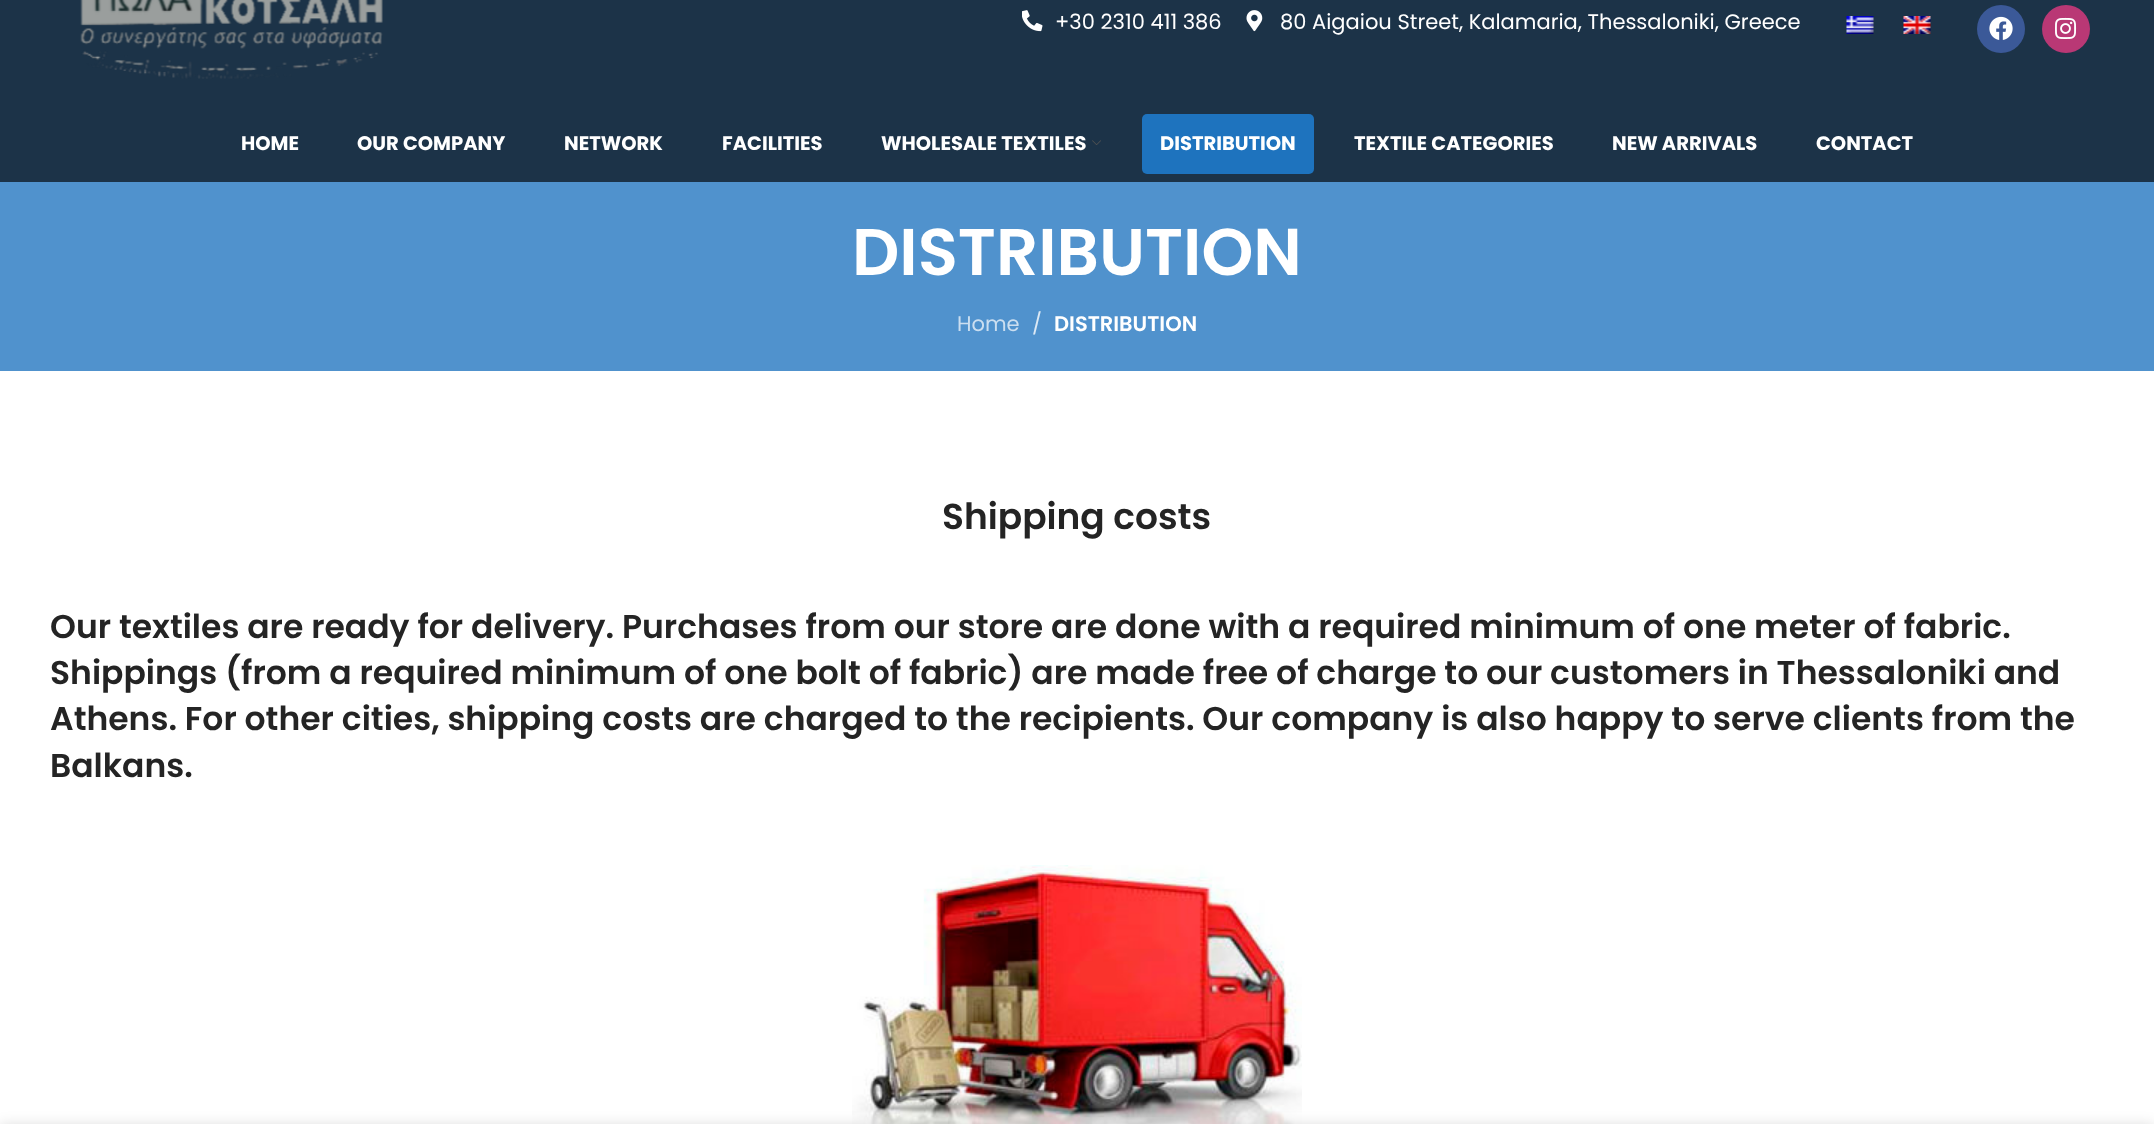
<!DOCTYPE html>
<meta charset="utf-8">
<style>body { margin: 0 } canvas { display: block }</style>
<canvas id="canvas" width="2154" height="1124"></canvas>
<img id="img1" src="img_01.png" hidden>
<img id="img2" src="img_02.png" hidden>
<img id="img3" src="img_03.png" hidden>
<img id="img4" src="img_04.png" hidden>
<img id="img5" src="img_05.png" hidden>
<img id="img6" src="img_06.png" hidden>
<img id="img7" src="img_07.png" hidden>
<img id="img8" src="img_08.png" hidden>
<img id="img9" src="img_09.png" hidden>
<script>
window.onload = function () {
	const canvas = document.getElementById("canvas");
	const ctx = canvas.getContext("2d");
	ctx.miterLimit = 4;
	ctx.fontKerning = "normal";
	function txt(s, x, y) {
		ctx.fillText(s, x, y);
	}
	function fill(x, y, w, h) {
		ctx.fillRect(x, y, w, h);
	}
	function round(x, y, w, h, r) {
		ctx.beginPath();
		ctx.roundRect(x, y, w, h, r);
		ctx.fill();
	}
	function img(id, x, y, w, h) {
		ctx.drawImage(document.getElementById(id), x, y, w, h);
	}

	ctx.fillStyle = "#FFFFFF";
	fill(0, 0, 2154, 1124);
	ctx.fillStyle = "#1C3348";
	fill(0, 0, 2154, 182);
	img("img1", 80, 0, 303, 79);
	img("img2", 1022, 10, 21, 22);
	img("img3", 1246, 10, 17, 22);
	img("img4", 1846, 16, 28, 18);
	img("img5", 1903, 16, 28, 18);
	ctx.fillStyle = "#3B5998";
	ctx.beginPath();
	ctx.arc(2001, 29, 24, 0, Math.PI * 2);
	ctx.fill();
	img("img6", 1989, 16, 24, 24);
	ctx.fillStyle = "#B93875";
	ctx.beginPath();
	ctx.arc(2066, 29, 24, 0, Math.PI * 2);
	ctx.fill();
	img("img7", 2055, 17, 22, 22);
	img("img8", 1092, 140, 9, 5);
	ctx.fillStyle = "#1E73BE";
	round(1142, 114, 172, 60, 5);
	ctx.fillStyle = "#5092CD";
	fill(0, 182, 2154, 189);
	img("img9", 852, 865, 450, 259);
	ctx.fillStyle = "rgba(0, 0, 0, 0.14)";
	ctx.filter = "blur(7px)";
	ctx.beginPath();
	ctx.rect(0, 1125, 2154, 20);
	ctx.fill();
	ctx.filter = "none";
	ctx.font = "21px Poppins";
	ctx.fillStyle = "#FFFFFF";
	txt("+30 2310 411 386", 1055, 29);
	txt("80 Aigaiou Street, Kalamaria, Thessaloniki, Greece", 1280, 29);
	ctx.font = "bold 19.5px Poppins";
	txt("HOME", 241, 150);
	txt("OUR COMPANY", 357, 150);
	txt("NETWORK", 564, 150);
	txt("FACILITIES", 722, 150);
	txt("WHOLESALE TEXTILES", 881, 150);
	txt("DISTRIBUTION", 1160, 150);
	txt("TEXTILE CATEGORIES", 1354, 150);
	txt("NEW ARRIVALS", 1612, 150);
	txt("CONTACT", 1816, 150);
	ctx.font = "600 66px Poppins";
	txt("DISTRIBUTION", 852, 275);
	ctx.font = "21px Poppins";
	ctx.fillStyle = "#CBDEF0";
	txt("Home", 957, 331);
	ctx.fillStyle = "#DCE9F5";
	txt("/", 1032, 331);
	ctx.font = "600 21px Poppins";
	ctx.fillStyle = "#FFFFFF";
	txt("DISTRIBUTION", 1054, 331);
	ctx.font = "600 36px Poppins";
	ctx.fillStyle = "#242424";
	txt("Shipping costs", 942, 529);
	ctx.font = "600 33px Poppins";
	txt("Our textiles are ready for delivery. Purchases from our store are done with a required minimum of one meter of fabric.", 50, 638);
	txt("Shippings (from a required minimum of one bolt of fabric) are made free of charge to our customers in Thessaloniki and", 50, 684);
	txt("Athens. For other cities, shipping costs are charged to the recipients. Our company is also happy to serve clients from the", 50, 730);
	txt("Balkans.", 50, 777);
};
</script>
